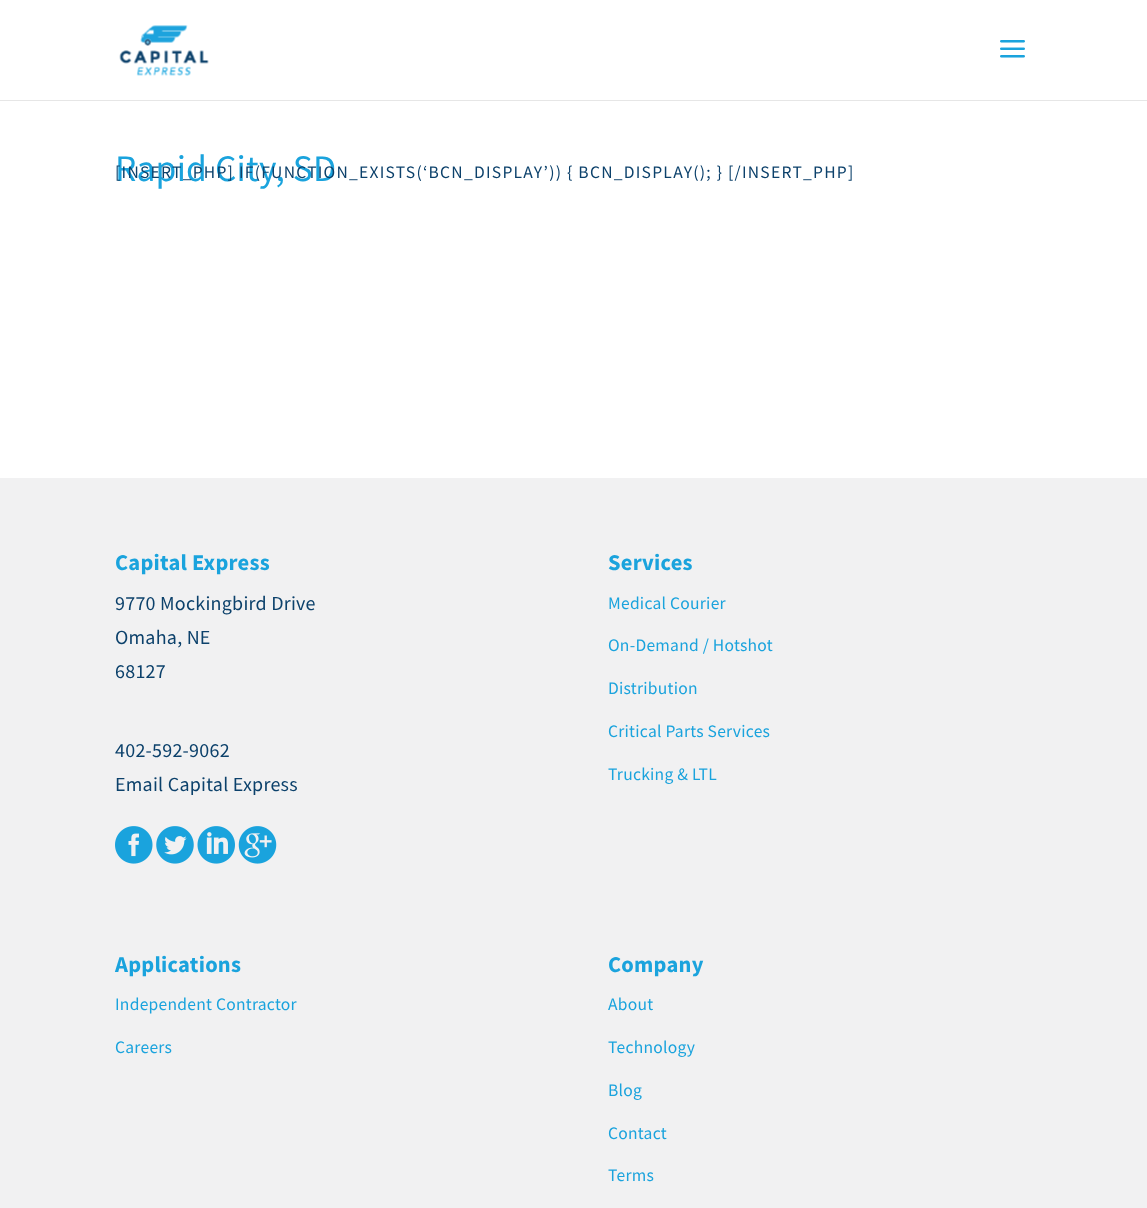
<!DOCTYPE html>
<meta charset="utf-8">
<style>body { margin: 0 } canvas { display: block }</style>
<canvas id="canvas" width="1147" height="1208"></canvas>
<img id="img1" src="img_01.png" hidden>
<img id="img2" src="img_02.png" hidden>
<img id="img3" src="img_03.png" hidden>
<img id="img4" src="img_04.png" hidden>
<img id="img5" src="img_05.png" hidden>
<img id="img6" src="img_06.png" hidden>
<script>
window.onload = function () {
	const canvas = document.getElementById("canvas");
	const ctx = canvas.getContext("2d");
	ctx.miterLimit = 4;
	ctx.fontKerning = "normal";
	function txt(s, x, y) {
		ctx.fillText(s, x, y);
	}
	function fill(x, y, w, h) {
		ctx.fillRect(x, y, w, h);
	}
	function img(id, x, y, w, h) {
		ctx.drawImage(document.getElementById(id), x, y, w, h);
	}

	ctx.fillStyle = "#F1F1F2";
	fill(0, 0, 1147, 1208);
	ctx.fillStyle = "#E6E6E6";
	ctx.beginPath();
	ctx.moveTo(0, 100);
	ctx.lineTo(0, 101);
	ctx.lineTo(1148, 101);
	ctx.lineTo(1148, 1);
	ctx.lineTo(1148, 100);
	ctx.closePath();
	ctx.fill();
	ctx.fillStyle = "#FFFFFF";
	fill(0, 0, 1147, 100);
	img("img1", 119, 25, 90, 51);
	img("img2", 1000, 40, 25, 18);
	fill(0, 101, 1147, 377);
	img("img3", 115, 826, 38, 38);
	img("img4", 156, 826, 38, 38);
	img("img5", 197, 826, 38, 38);
	img("img6", 238, 826, 39, 38);
	ctx.letterSpacing = "0.25px";
	ctx.font = "37.5px Source Sans Pro";
	ctx.fillStyle = "#1AA3DD";
	txt("Rapid City, SD", 115, 181);
	ctx.letterSpacing = "1.25px";
	ctx.font = "17.5px Source Sans Pro";
	ctx.fillStyle = "#0C416B";
	txt("[INSERT_PHP] IF(FUNCTION_EXISTS(‘BCN_DISPLAY’)) { BCN_DISPLAY(); } [/INSERT_PHP]", 115, 178);
	ctx.letterSpacing = "0.25px";
	ctx.font = "bold 22.5px Source Sans Pro";
	ctx.fillStyle = "#1AA3DD";
	txt("Capital Express", 115, 570);
	ctx.font = "20px Source Sans Pro";
	ctx.fillStyle = "#0C416B";
	txt("9770 Mockingbird Drive", 115, 610);
	txt("Omaha, NE", 115, 644);
	txt("68127", 115, 678);
	txt("402-592-9062", 115, 757);
	txt("Email Capital Express", 115, 791);
	ctx.font = "bold 22.5px Source Sans Pro";
	ctx.fillStyle = "#1AA3DD";
	txt("Services", 608, 570);
	ctx.font = "17.5px Source Sans Pro";
	txt("Medical Courier", 608, 609);
	txt("On-Demand / Hotshot", 608, 651);
	txt("Distribution", 608, 694);
	txt("Critical Parts Services", 608, 737);
	txt("Trucking & LTL", 608, 780);
	ctx.font = "bold 22.5px Source Sans Pro";
	txt("Applications", 115, 972);
	ctx.font = "17.5px Source Sans Pro";
	txt("Independent Contractor", 115, 1010);
	txt("Careers", 115, 1053);
	ctx.font = "bold 22.5px Source Sans Pro";
	txt("Company", 608, 972);
	ctx.font = "17.5px Source Sans Pro";
	txt("About", 608, 1010);
	txt("Technology", 608, 1053);
	txt("Blog", 608, 1096);
	txt("Contact", 608, 1139);
	txt("Terms", 608, 1181);
};
</script>
